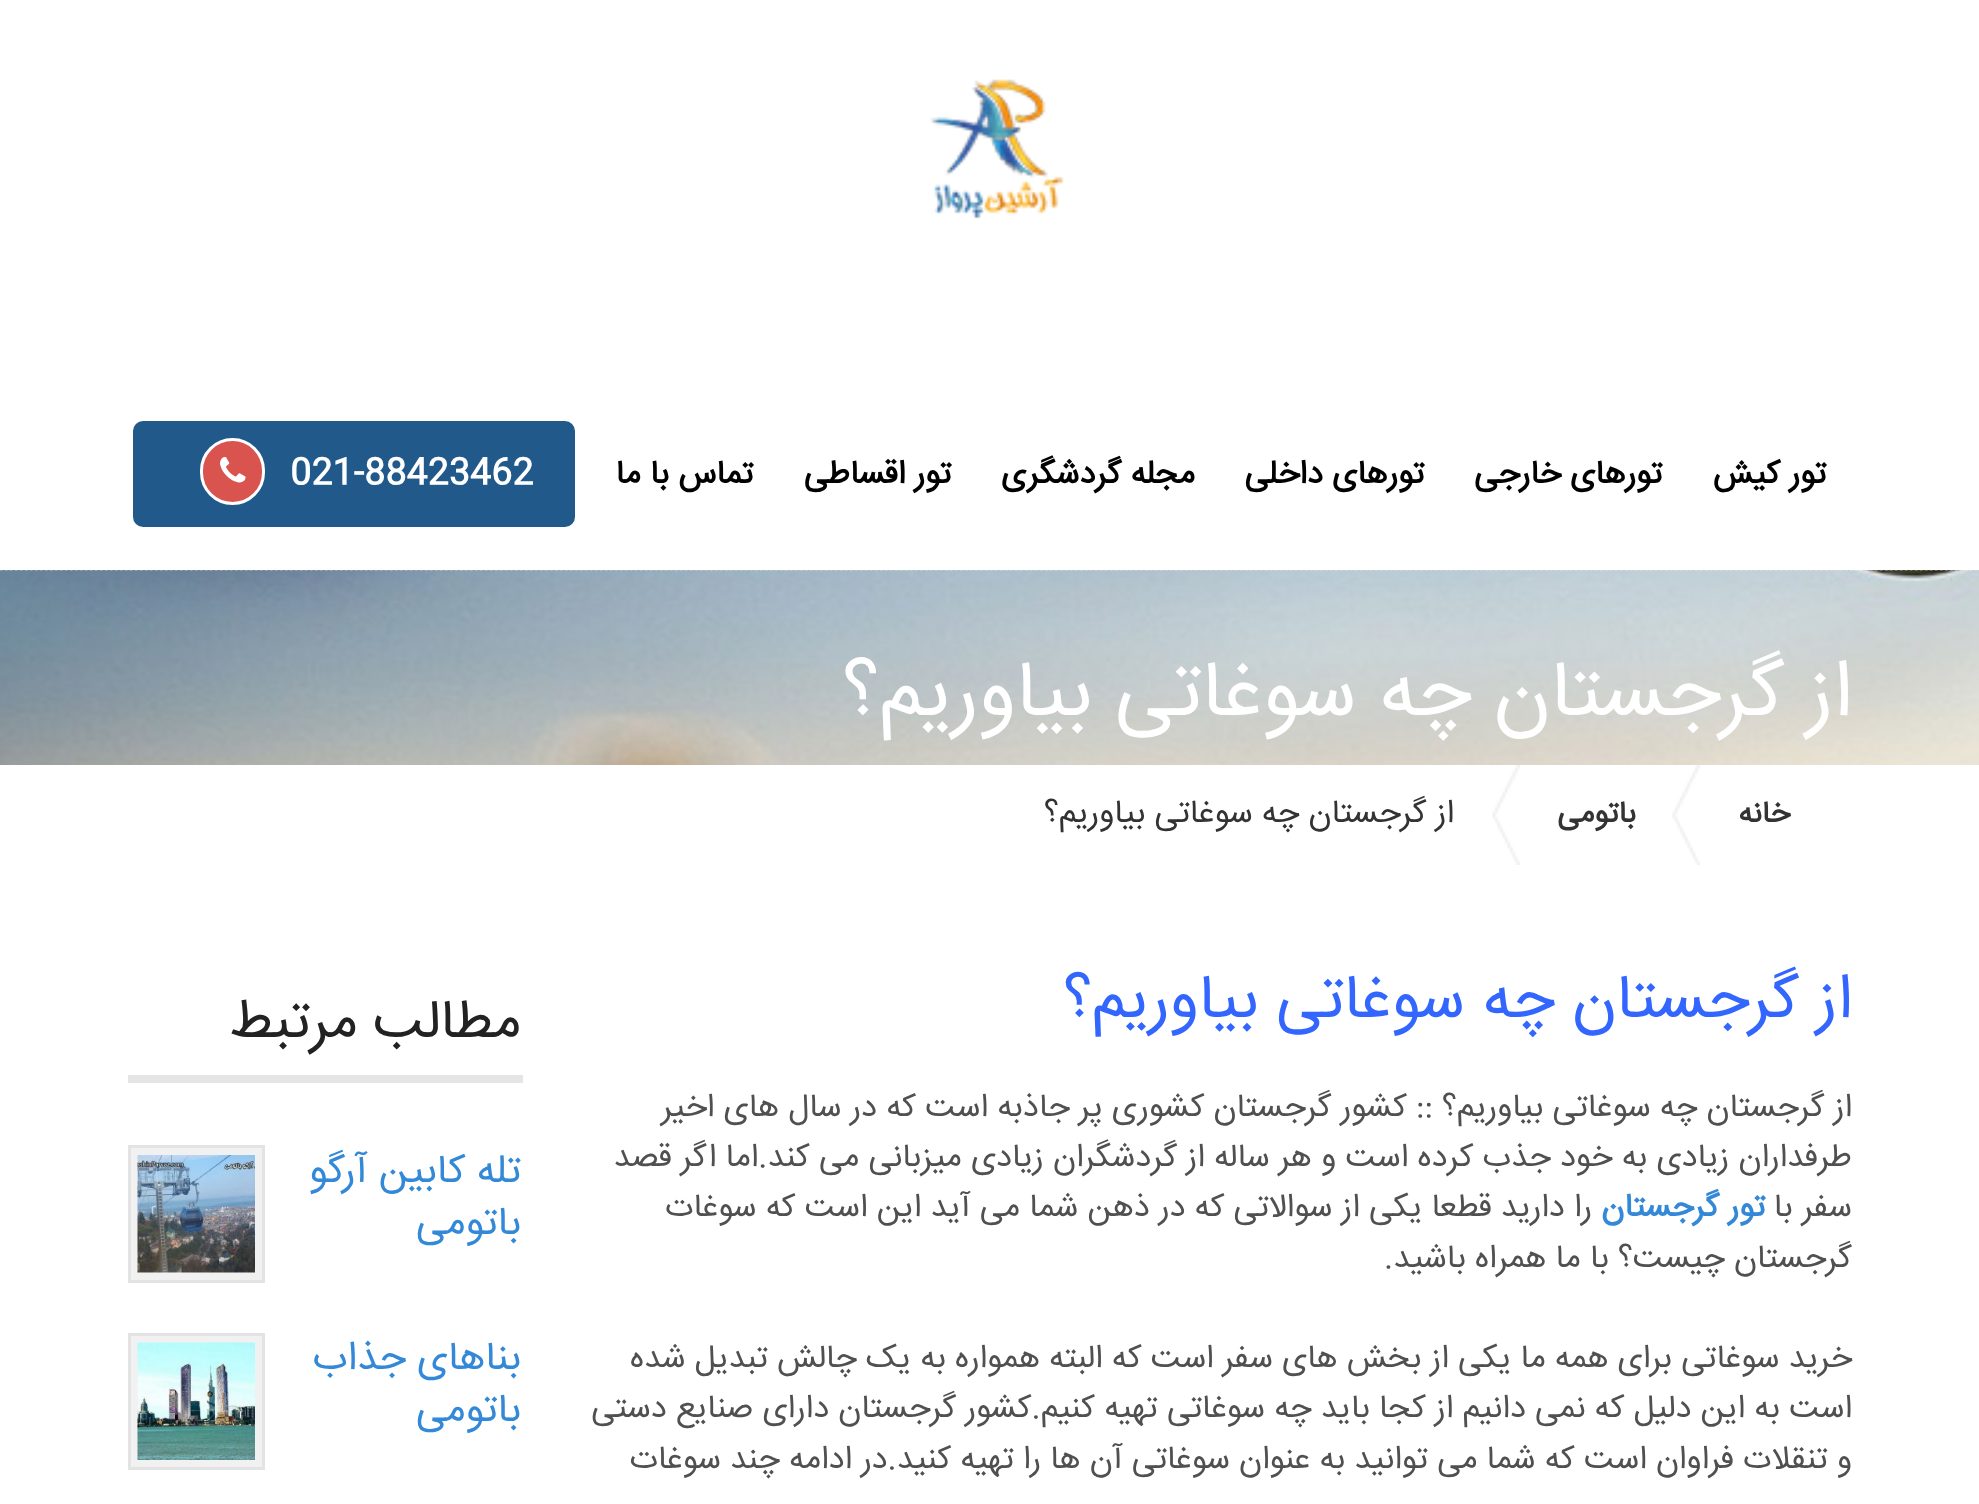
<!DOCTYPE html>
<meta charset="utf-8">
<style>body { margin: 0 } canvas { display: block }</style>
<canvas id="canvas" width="1979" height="1504"></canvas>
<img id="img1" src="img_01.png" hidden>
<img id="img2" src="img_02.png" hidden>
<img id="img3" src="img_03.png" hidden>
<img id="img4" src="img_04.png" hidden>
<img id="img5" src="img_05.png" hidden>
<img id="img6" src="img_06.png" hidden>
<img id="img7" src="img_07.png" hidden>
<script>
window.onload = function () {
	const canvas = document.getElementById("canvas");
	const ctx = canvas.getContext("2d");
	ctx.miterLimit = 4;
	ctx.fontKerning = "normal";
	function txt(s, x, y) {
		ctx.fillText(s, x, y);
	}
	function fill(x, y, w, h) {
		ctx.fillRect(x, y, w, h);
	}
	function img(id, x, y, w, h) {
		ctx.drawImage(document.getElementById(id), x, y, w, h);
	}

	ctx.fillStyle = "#FFFFFF";
	fill(0, 0, 1979, 1504);
	img("img1", 0, 570, 1979, 195);
	img("img2", 929, 79, 135, 140);
	ctx.beginPath();
	ctx.moveTo(0, 569);
	ctx.lineTo(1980, 569);
	ctx.strokeStyle = "#FFFFFF";
	ctx.lineWidth = 2.5;
	ctx.setLineDash([2.5, 2.5]);
	ctx.stroke();
	ctx.fillStyle = "#21598B";
	ctx.beginPath();
	ctx.roundRect(131.5, 419.5, 445, 109, 11.5);
	ctx.fill();
	ctx.lineWidth = 3;
	ctx.setLineDash([]);
	ctx.stroke();
	ctx.fillStyle = "#D9534F";
	ctx.beginPath();
	ctx.roundRect(201.5, 439.5, 62, 64, 31);
	ctx.fill();
	ctx.stroke();
	img("img3", 220, 457, 26, 26);
	img("img4", 1672, 765, 28, 100);
	img("img5", 1492, 765, 28, 100);
	ctx.fillStyle = "#E5E5E5";
	fill(128, 1075, 395, 8);
	ctx.fillStyle = "#F1F1F1";
	ctx.beginPath();
	ctx.rect(129.5, 1146.5, 134, 135);
	ctx.fill();
	ctx.strokeStyle = "#E3E3E3";
	ctx.stroke();
	img("img6", 137, 1155, 118, 118);
	ctx.beginPath();
	ctx.rect(129.5, 1334.5, 134, 134);
	ctx.fill();
	ctx.stroke();
	img("img7", 137, 1342, 118, 118);
	ctx.direction = "rtl";
	ctx.font = "bold 32.5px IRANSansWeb";
	ctx.fillStyle = "#000000";
	txt("تور کیش", 1826, 483);
	txt("تورهای خارجی", 1662, 483);
	txt("تورهای داخلی", 1424, 483);
	txt("مجله گردشگری", 1195, 483);
	txt("تور اقساطی", 951, 483);
	txt("تماس با ما", 753, 483);
	ctx.direction = "ltr";
	ctx.font = "bold 35px IRANSansWeb";
	ctx.fillStyle = "#FFFFFF";
	txt("021-88423462", 290, 483);
	ctx.direction = "rtl";
	ctx.font = "80px IRANSansWeb";
	txt("از گرجستان چه سوغاتی بیاوریم؟", 1852, 715);
	ctx.font = "bold 30px IRANSansWeb";
	ctx.fillStyle = "#333333";
	txt("خانه", 1790, 822);
	txt("باتومی", 1636, 822);
	ctx.font = "32.5px IRANSansWeb";
	txt("از گرجستان چه سوغاتی بیاوریم؟", 1454, 822);
	ctx.font = "62.5px IRANSansWeb";
	ctx.fillStyle = "#3366FF";
	txt("از گرجستان چه سوغاتی بیاوریم؟", 1852, 1017);
	ctx.font = "32.5px IRANSansWeb";
	ctx.fillStyle = "#505050";
	txt("از گرجستان چه سوغاتی بیاوریم؟ :: کشور گرجستان کشوری پر جاذبه است که در سال های اخیر", 1852, 1116);
	txt("طرفداران زیادی به خود جذب کرده است و هر ساله از گردشگران زیادی میزبانی می کند.اما اگر قصد", 1852, 1166);
	txt("سفر با", 1852, 1216);
	ctx.font = "bold 32.5px IRANSansWeb";
	ctx.fillStyle = "#3389D7";
	txt("تور گرجستان", 1765, 1216);
	ctx.font = "32.5px IRANSansWeb";
	ctx.fillStyle = "#505050";
	txt("را دارید قطعا یکی از سوالاتی که در ذهن شما می آید این است که سوغات", 1592, 1216);
	txt("گرجستان چیست؟ با ما همراه باشید.", 1852, 1267);
	txt("خرید سوغاتی برای همه ما یکی از بخش های سفر است که البته همواره به یک چالش تبدیل شده", 1852, 1367);
	txt("است به این دلیل که نمی دانیم از کجا باید چه سوغاتی تهیه کنیم.کشور گرجستان دارای صنایع دستی", 1852, 1417);
	txt("و تنقلات فراوان است که شما می توانید به عنوان سوغاتی آن ها را تهیه کنید.در ادامه چند سوغات", 1852, 1468);
	ctx.font = "55px IRANSansWeb";
	ctx.fillStyle = "#222222";
	txt("مطالب مرتبط", 521, 1037);
	ctx.font = "40px IRANSansWeb";
	ctx.fillStyle = "#3389D7";
	txt("تله کابین آرگو", 521, 1182);
	txt("باتومی", 521, 1234);
	txt("بناهای جذاب", 521, 1369);
	txt("باتومی", 521, 1421);
};
</script>
